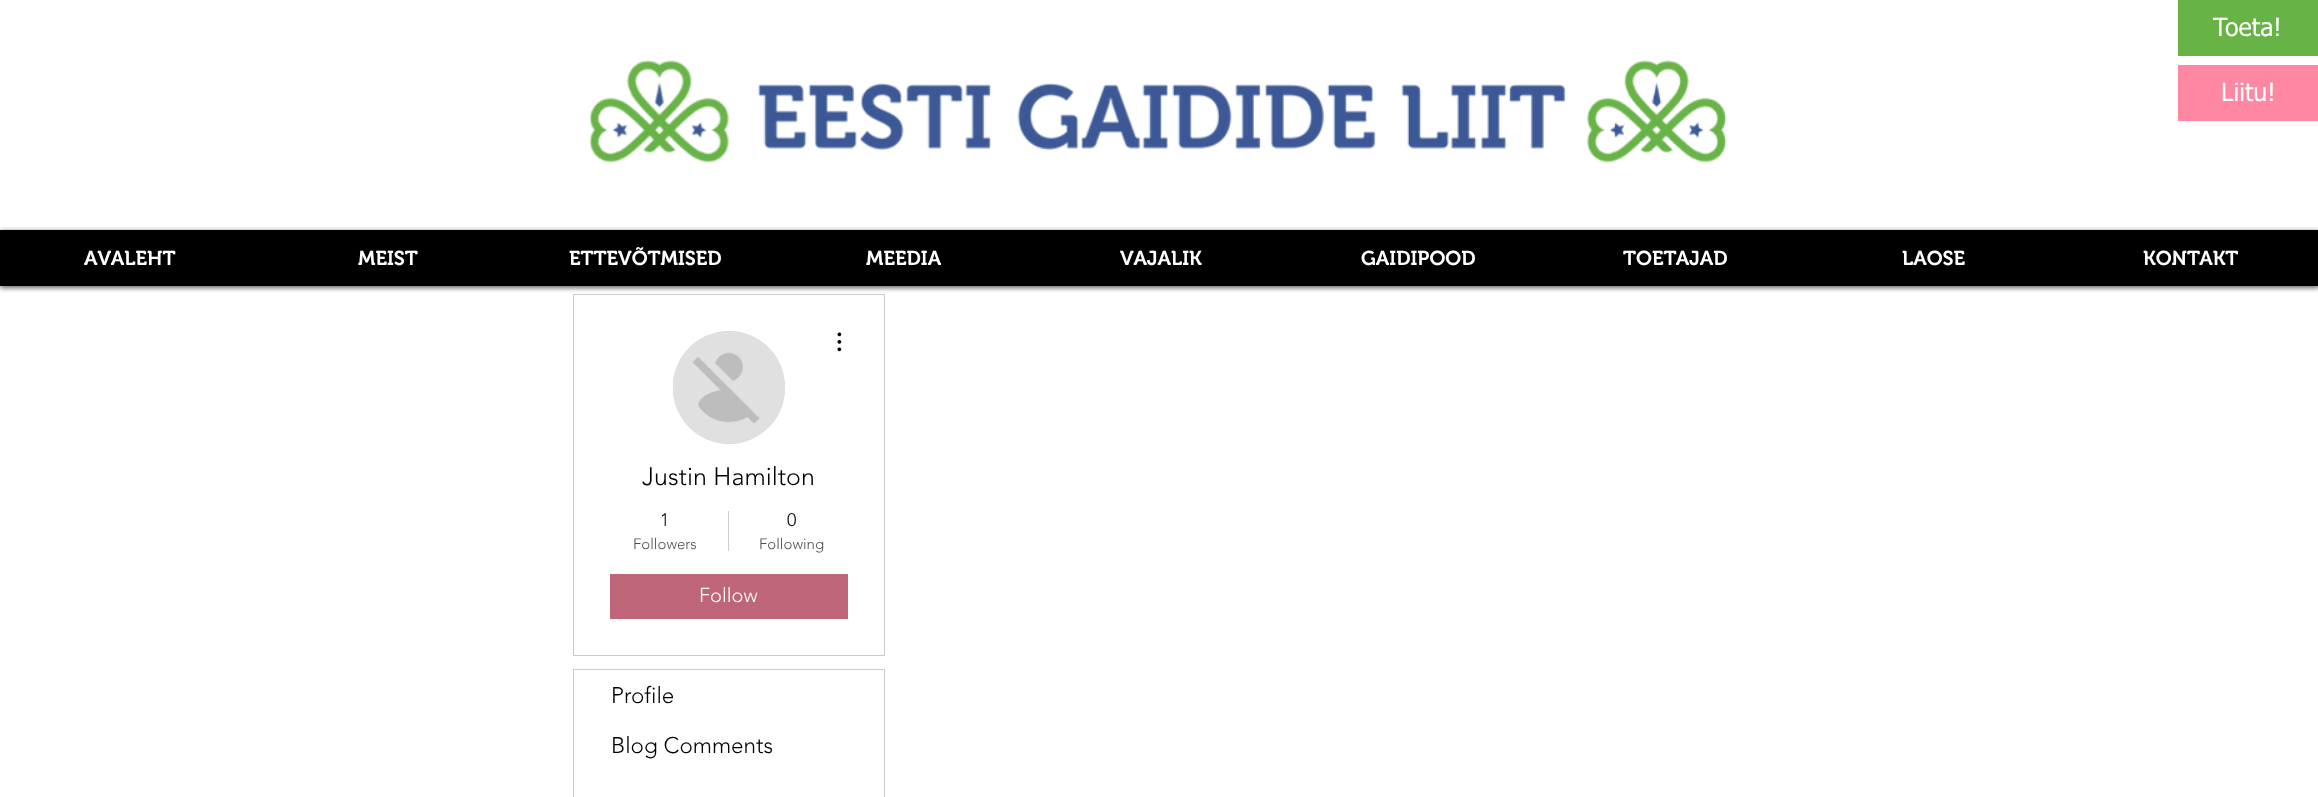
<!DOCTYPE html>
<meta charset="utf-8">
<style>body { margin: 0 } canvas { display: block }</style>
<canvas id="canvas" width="2318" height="797"></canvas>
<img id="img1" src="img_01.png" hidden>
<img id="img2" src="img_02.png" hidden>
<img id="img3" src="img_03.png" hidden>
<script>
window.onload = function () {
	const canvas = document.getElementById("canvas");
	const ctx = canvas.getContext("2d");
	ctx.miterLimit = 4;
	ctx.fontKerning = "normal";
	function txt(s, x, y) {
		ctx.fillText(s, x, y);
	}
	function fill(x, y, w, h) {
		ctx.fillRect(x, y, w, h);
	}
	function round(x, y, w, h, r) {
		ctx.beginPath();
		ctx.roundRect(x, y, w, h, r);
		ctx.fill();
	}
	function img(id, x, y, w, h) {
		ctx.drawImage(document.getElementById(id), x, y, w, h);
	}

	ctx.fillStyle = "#FFFFFF";
	fill(0, 0, 2318, 797);
	ctx.fillStyle = "#67B346";
	fill(2178, 0, 140, 56);
	ctx.fillStyle = "#FE87A3";
	fill(2178, 65, 140, 56);
	img("img1", 589, 60, 1138, 103);
	ctx.strokeStyle = "#CCCCCC";
	ctx.strokeRect(573.5, 294.5, 311, 361);
	ctx.fillStyle = "rgba(0, 0, 0, 0.6)";
	ctx.filter = "blur(2.5px)";
	ctx.beginPath();
	ctx.rect(0, 231, 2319, 57);
	ctx.fill();
	ctx.filter = "none";
	ctx.fillStyle = "#000000";
	fill(0, 230, 2318, 56);
	ctx.fillStyle = "#D8D8D8";
	round(673, 331, 112, 113, 56);
	img("img2", 672, 332, 113, 111);
	img("img3", 837, 332, 5, 20);
	ctx.fillStyle = "#CCCCCC";
	fill(728, 511, 1, 40);
	ctx.fillStyle = "#BF657A";
	fill(610, 574, 238, 45);
	ctx.strokeRect(573.5, 669.5, 311, 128);
	ctx.font = "25px tahoma";
	ctx.fillStyle = "#FFFFFF";
	txt("Toeta!", 2213, 36);
	txt("Liitu!", 2221, 101);
	ctx.font = "600 20px 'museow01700'";
	txt("AVALEHT", 84, 265);
	txt("MEIST", 358, 265);
	txt("ETTEVÕTMISED", 569, 265);
	txt("MEEDIA", 866, 265);
	txt("VAJALIK", 1120, 265);
	txt("GAIDIPOOD", 1361, 265);
	txt("TOETAJAD", 1623, 265);
	txt("LAOSE", 1902, 265);
	txt("KONTAKT", 2143, 265);
	ctx.font = "300 25px 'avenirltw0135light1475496'";
	ctx.fillStyle = "#000000";
	txt("Justin Hamilton", 642, 485);
	ctx.font = "300 18px 'avenirltw0135light1475496'";
	txt("1", 660, 526);
	ctx.font = "300 15px 'avenirltw0135light1475496'";
	ctx.fillStyle = "#4D4D4D";
	txt("Followers", 633, 549);
	ctx.font = "300 18px 'avenirltw0135light1475496'";
	ctx.fillStyle = "#000000";
	txt("0", 787, 526);
	ctx.font = "300 15px 'avenirltw0135light1475496'";
	ctx.fillStyle = "#4D4D4D";
	txt("Following", 759, 549);
	ctx.font = "300 20px 'avenirltw0135light1475496'";
	ctx.fillStyle = "#FFFFFF";
	txt("Follow", 699, 602);
	ctx.font = "300 22.5px 'avenirltw0135light1475496'";
	ctx.fillStyle = "#000000";
	txt("Profile", 611, 703);
	txt("Blog Comments", 611, 753);
};
</script>
